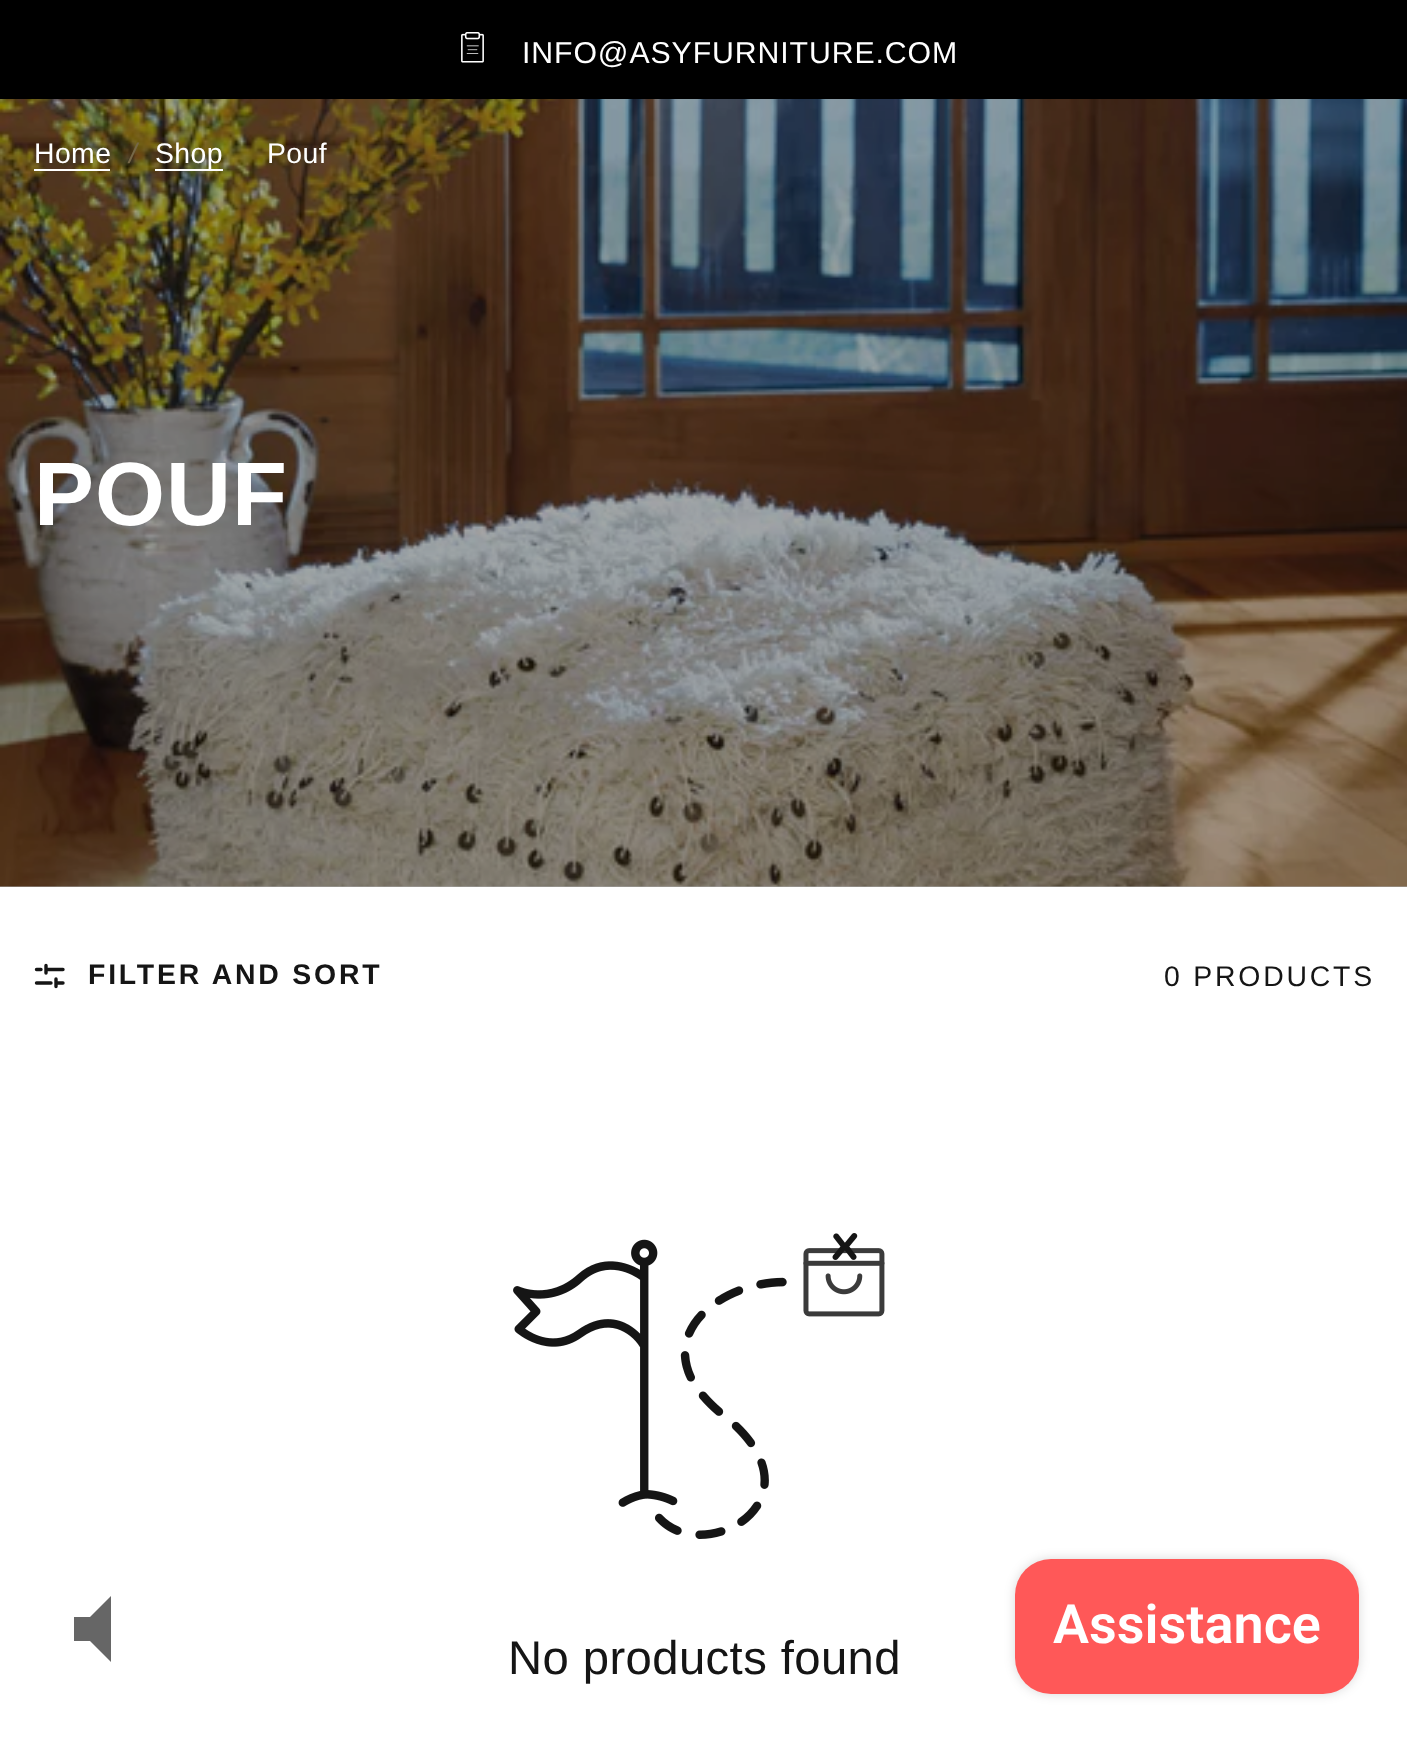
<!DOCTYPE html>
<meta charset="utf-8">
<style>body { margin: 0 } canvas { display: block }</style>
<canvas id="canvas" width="1407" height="1740"></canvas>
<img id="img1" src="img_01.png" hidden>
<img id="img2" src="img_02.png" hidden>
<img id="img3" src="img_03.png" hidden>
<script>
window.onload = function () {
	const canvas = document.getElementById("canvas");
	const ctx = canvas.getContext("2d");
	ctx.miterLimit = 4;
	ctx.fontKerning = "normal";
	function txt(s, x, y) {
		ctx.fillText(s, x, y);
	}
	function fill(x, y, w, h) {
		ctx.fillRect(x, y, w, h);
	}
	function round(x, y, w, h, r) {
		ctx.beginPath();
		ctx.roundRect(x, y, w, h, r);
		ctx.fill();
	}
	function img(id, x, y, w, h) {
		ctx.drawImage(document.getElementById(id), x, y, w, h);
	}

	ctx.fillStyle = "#FFFFFF";
	fill(0, 0, 1407, 1740);
	ctx.fillStyle = "#A6A6A6";
	fill(0, 886, 1407, 1);
	ctx.fillStyle = "#000000";
	fill(0, 0, 1407, 99);
	img("img1", 461, 32, 23, 31);
	img("img2", 0, 99, 1407, 788);
	ctx.fillStyle = "#FFFFFF";
	fill(34, 169, 76, 2);
	fill(155, 169, 68, 2);
	ctx.beginPath();
	ctx.moveTo(51, 983);
	ctx.lineTo(36.5, 983);
	ctx.moveTo(63, 983);
	ctx.lineTo(56, 983);
	ctx.moveTo(41, 969.5);
	ctx.lineTo(36.5, 969.5);
	ctx.moveTo(63, 969.5);
	ctx.lineTo(46, 969.5);
	ctx.moveTo(46, 965.5);
	ctx.lineTo(46, 973);
	ctx.moveTo(56, 986.5);
	ctx.lineTo(56, 979);
	ctx.strokeStyle = "#151515";
	ctx.lineWidth = 3.4;
	ctx.lineCap = "round";
	ctx.lineJoin = "round";
	ctx.stroke();
	img("img3", 513, 1233, 372, 306);
	ctx.fillStyle = "#666666";
	ctx.beginPath();
	ctx.moveTo(74, 1617);
	ctx.lineTo(74, 1641);
	ctx.lineTo(90, 1641);
	ctx.lineTo(111, 1662);
	ctx.lineTo(111, 1596);
	ctx.lineTo(90, 1617);
	ctx.closePath();
	ctx.fill();
	ctx.fillStyle = "rgba(0, 0, 0, 0.15)";
	ctx.filter = "blur(5.5px)";
	ctx.beginPath();
	ctx.roundRect(1015, 1559, 344, 135, 36);
	ctx.fill();
	ctx.filter = "none";
	ctx.fillStyle = "#FF5858";
	round(1015, 1559, 344, 135, 36);
	ctx.letterSpacing = "0.9px";
	ctx.font = "30.25px Liberation Sans";
	ctx.fillStyle = "#FFFFFF";
	txt("INFO@ASYFURNITURE.COM", 522, 63);
	ctx.letterSpacing = "0.4px";
	ctx.font = "28.4px Liberation Sans";
	txt("Home", 34, 163);
	ctx.font = "italic 28.4px Liberation Sans";
	ctx.fillStyle = "#766848";
	txt("/", 129, 163);
	ctx.font = "28.4px Liberation Sans";
	ctx.fillStyle = "#FFFFFF";
	txt("Shop", 155, 163);
	txt("Pouf", 267, 163);
	ctx.letterSpacing = "1px";
	ctx.font = "bold 90px Liberation Sans";
	txt("POUF", 34, 525);
	ctx.letterSpacing = "2.8px";
	ctx.font = "bold 28.4px Liberation Sans";
	ctx.fillStyle = "#151515";
	txt("FILTER AND SORT", 88, 984);
	ctx.font = "28.4px Liberation Sans";
	txt("0 PRODUCTS", 1164, 986);
	ctx.letterSpacing = "0.4px";
	ctx.font = "47.25px Liberation Sans";
	txt("No products found", 508, 1674);
	ctx.letterSpacing = "0px";
	ctx.font = "600 54px Roboto";
	ctx.fillStyle = "#FFFFFF";
	txt("Assistance", 1053, 1643);
};
</script>
